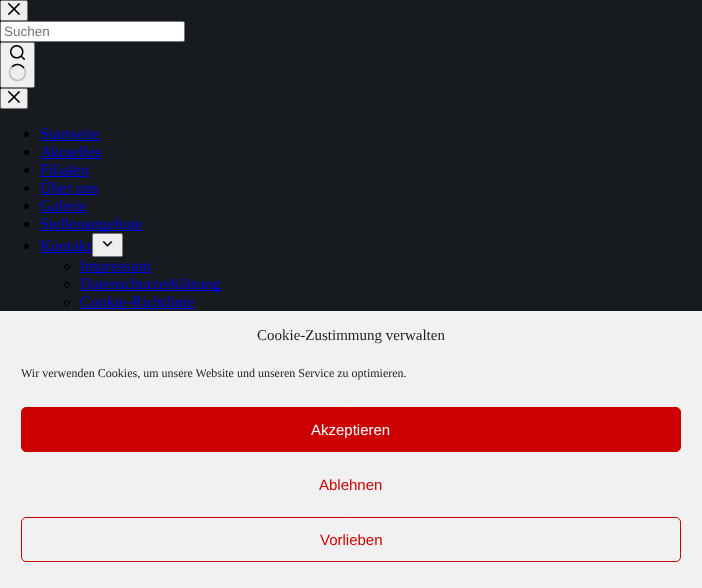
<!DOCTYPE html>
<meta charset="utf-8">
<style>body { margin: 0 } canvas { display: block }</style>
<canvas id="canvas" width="702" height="588"></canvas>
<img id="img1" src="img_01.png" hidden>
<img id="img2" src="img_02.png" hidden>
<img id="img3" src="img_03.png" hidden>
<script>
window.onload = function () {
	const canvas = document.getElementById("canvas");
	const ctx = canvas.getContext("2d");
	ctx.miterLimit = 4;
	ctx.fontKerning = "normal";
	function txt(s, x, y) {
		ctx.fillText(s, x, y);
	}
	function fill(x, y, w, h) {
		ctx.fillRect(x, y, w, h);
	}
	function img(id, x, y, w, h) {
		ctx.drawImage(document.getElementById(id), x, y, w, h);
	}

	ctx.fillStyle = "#171A1E";
	fill(0, 0, 702, 588);
	ctx.fillStyle = "#EFEFEF";
	ctx.beginPath();
	ctx.roundRect(0.5, 0.5, 27, 20, 1.5);
	ctx.fill();
	ctx.strokeStyle = "#767676";
	ctx.stroke();
	img("img1", 8, 3, 12, 12);
	ctx.fillStyle = "#FFFFFF";
	ctx.beginPath();
	ctx.roundRect(0.5, 21.5, 184, 20, 1.5);
	ctx.fill();
	ctx.stroke();
	ctx.fillStyle = "#EFEFEF";
	ctx.beginPath();
	ctx.roundRect(0.5, 42.5, 34, 45, 1.5);
	ctx.fill();
	ctx.stroke();
	img("img2", 10, 45, 15, 15);
	ctx.beginPath();
	ctx.arc(17.5, 72.5, 8, 0, Math.PI * 2);
	ctx.strokeStyle = "#BFBFBF";
	ctx.lineWidth = 1.6;
	ctx.stroke();
	ctx.beginPath();
	ctx.moveTo(12.5, 66.5);
	ctx.bezierCurveTo(15.5, 63.5, 20.5, 64, 23.5, 67.5);
	ctx.strokeStyle = "#000000";
	ctx.lineCap = "round";
	ctx.stroke();
	ctx.beginPath();
	ctx.roundRect(0.5, 88.5, 27, 20, 1.5);
	ctx.fill();
	ctx.strokeStyle = "#767676";
	ctx.lineWidth = 1;
	ctx.stroke();
	img("img1", 8, 91, 12, 12);
	ctx.fillStyle = "#000000";
	ctx.beginPath();
	ctx.arc(26.5, 134.5, 2.5, 0, Math.PI * 2);
	ctx.fill();
	ctx.fillStyle = "#0000EE";
	fill(40, 140, 60, 1);
	ctx.fillStyle = "#000000";
	ctx.beginPath();
	ctx.arc(26.5, 152.5, 2.5, 0, Math.PI * 2);
	ctx.fill();
	ctx.fillStyle = "#0000EE";
	fill(40, 158, 61, 1);
	ctx.fillStyle = "#000000";
	ctx.beginPath();
	ctx.arc(26.5, 170.5, 2.5, 0, Math.PI * 2);
	ctx.fill();
	ctx.fillStyle = "#0000EE";
	fill(40, 176, 49, 1);
	ctx.fillStyle = "#000000";
	ctx.beginPath();
	ctx.arc(26.5, 188.5, 2.5, 0, Math.PI * 2);
	ctx.fill();
	ctx.fillStyle = "#0000EE";
	fill(40, 194, 58, 1);
	ctx.fillStyle = "#000000";
	ctx.beginPath();
	ctx.arc(26.5, 206.5, 2.5, 0, Math.PI * 2);
	ctx.fill();
	ctx.fillStyle = "#0000EE";
	fill(40, 212, 47, 1);
	ctx.fillStyle = "#000000";
	ctx.beginPath();
	ctx.arc(26.5, 224.5, 2.5, 0, Math.PI * 2);
	ctx.fill();
	ctx.fillStyle = "#0000EE";
	fill(40, 230, 102, 1);
	ctx.fillStyle = "#000000";
	ctx.beginPath();
	ctx.arc(26.5, 246.5, 2.5, 0, Math.PI * 2);
	ctx.fill();
	ctx.fillStyle = "#0000EE";
	fill(40, 252, 52, 1);
	ctx.fillStyle = "#EFEFEF";
	ctx.beginPath();
	ctx.roundRect(92.5, 233.5, 30, 23, 1.5);
	ctx.fill();
	ctx.stroke();
	img("img3", 102, 241, 11, 6);
	ctx.beginPath();
	ctx.arc(67, 267, 2.5, 0, Math.PI * 2);
	ctx.strokeStyle = "#000000";
	ctx.stroke();
	ctx.fillStyle = "#0000EE";
	fill(80, 272, 71, 1);
	ctx.beginPath();
	ctx.arc(67, 285, 2.5, 0, Math.PI * 2);
	ctx.stroke();
	fill(80, 290, 140, 1);
	ctx.beginPath();
	ctx.arc(67, 303, 2.5, 0, Math.PI * 2);
	ctx.stroke();
	fill(80, 308, 115, 1);
	ctx.fillStyle = "#F1F1F1";
	fill(0, 311, 702, 277);
	ctx.fillStyle = "#CC0000";
	ctx.beginPath();
	ctx.roundRect(21.5, 407.5, 659, 44, 4.5);
	ctx.fill();
	ctx.strokeStyle = "#CC0000";
	ctx.stroke();
	ctx.beginPath();
	ctx.roundRect(21.5, 517.5, 659, 44, 4.5);
	ctx.stroke();
	ctx.font = "13.5px Liberation Sans";
	ctx.fillStyle = "#757575";
	txt("Suchen", 4, 36);
	ctx.font = "16px Liberation Serif";
	ctx.fillStyle = "#0000EE";
	txt("Startseite", 40, 139);
	txt("Aktuelles", 40, 157);
	txt("Filialen", 40, 175);
	txt("Über uns", 40, 193);
	txt("Galerie", 40, 211);
	txt("Stellenangebote", 40, 229);
	txt("Kontakt", 40, 251);
	txt("Impressum", 80, 271);
	txt("Datenschutzerklärung", 80, 289);
	txt("Cookie-Richtlinie", 80, 307);
	ctx.font = "15px Liberation Serif";
	ctx.fillStyle = "#191E23";
	txt("Cookie-Zustimmung verwalten", 257, 340);
	ctx.font = "12px Liberation Serif";
	txt("Wir verwenden Cookies, um unsere Website und unseren Service zu optimieren.", 21, 377);
	ctx.font = "15px Liberation Sans";
	ctx.fillStyle = "#FFFFFF";
	txt("Akzeptieren", 311, 435);
	ctx.fillStyle = "#CC0000";
	txt("Ablehnen", 319, 490);
	txt("Vorlieben", 320, 545);
};
</script>
